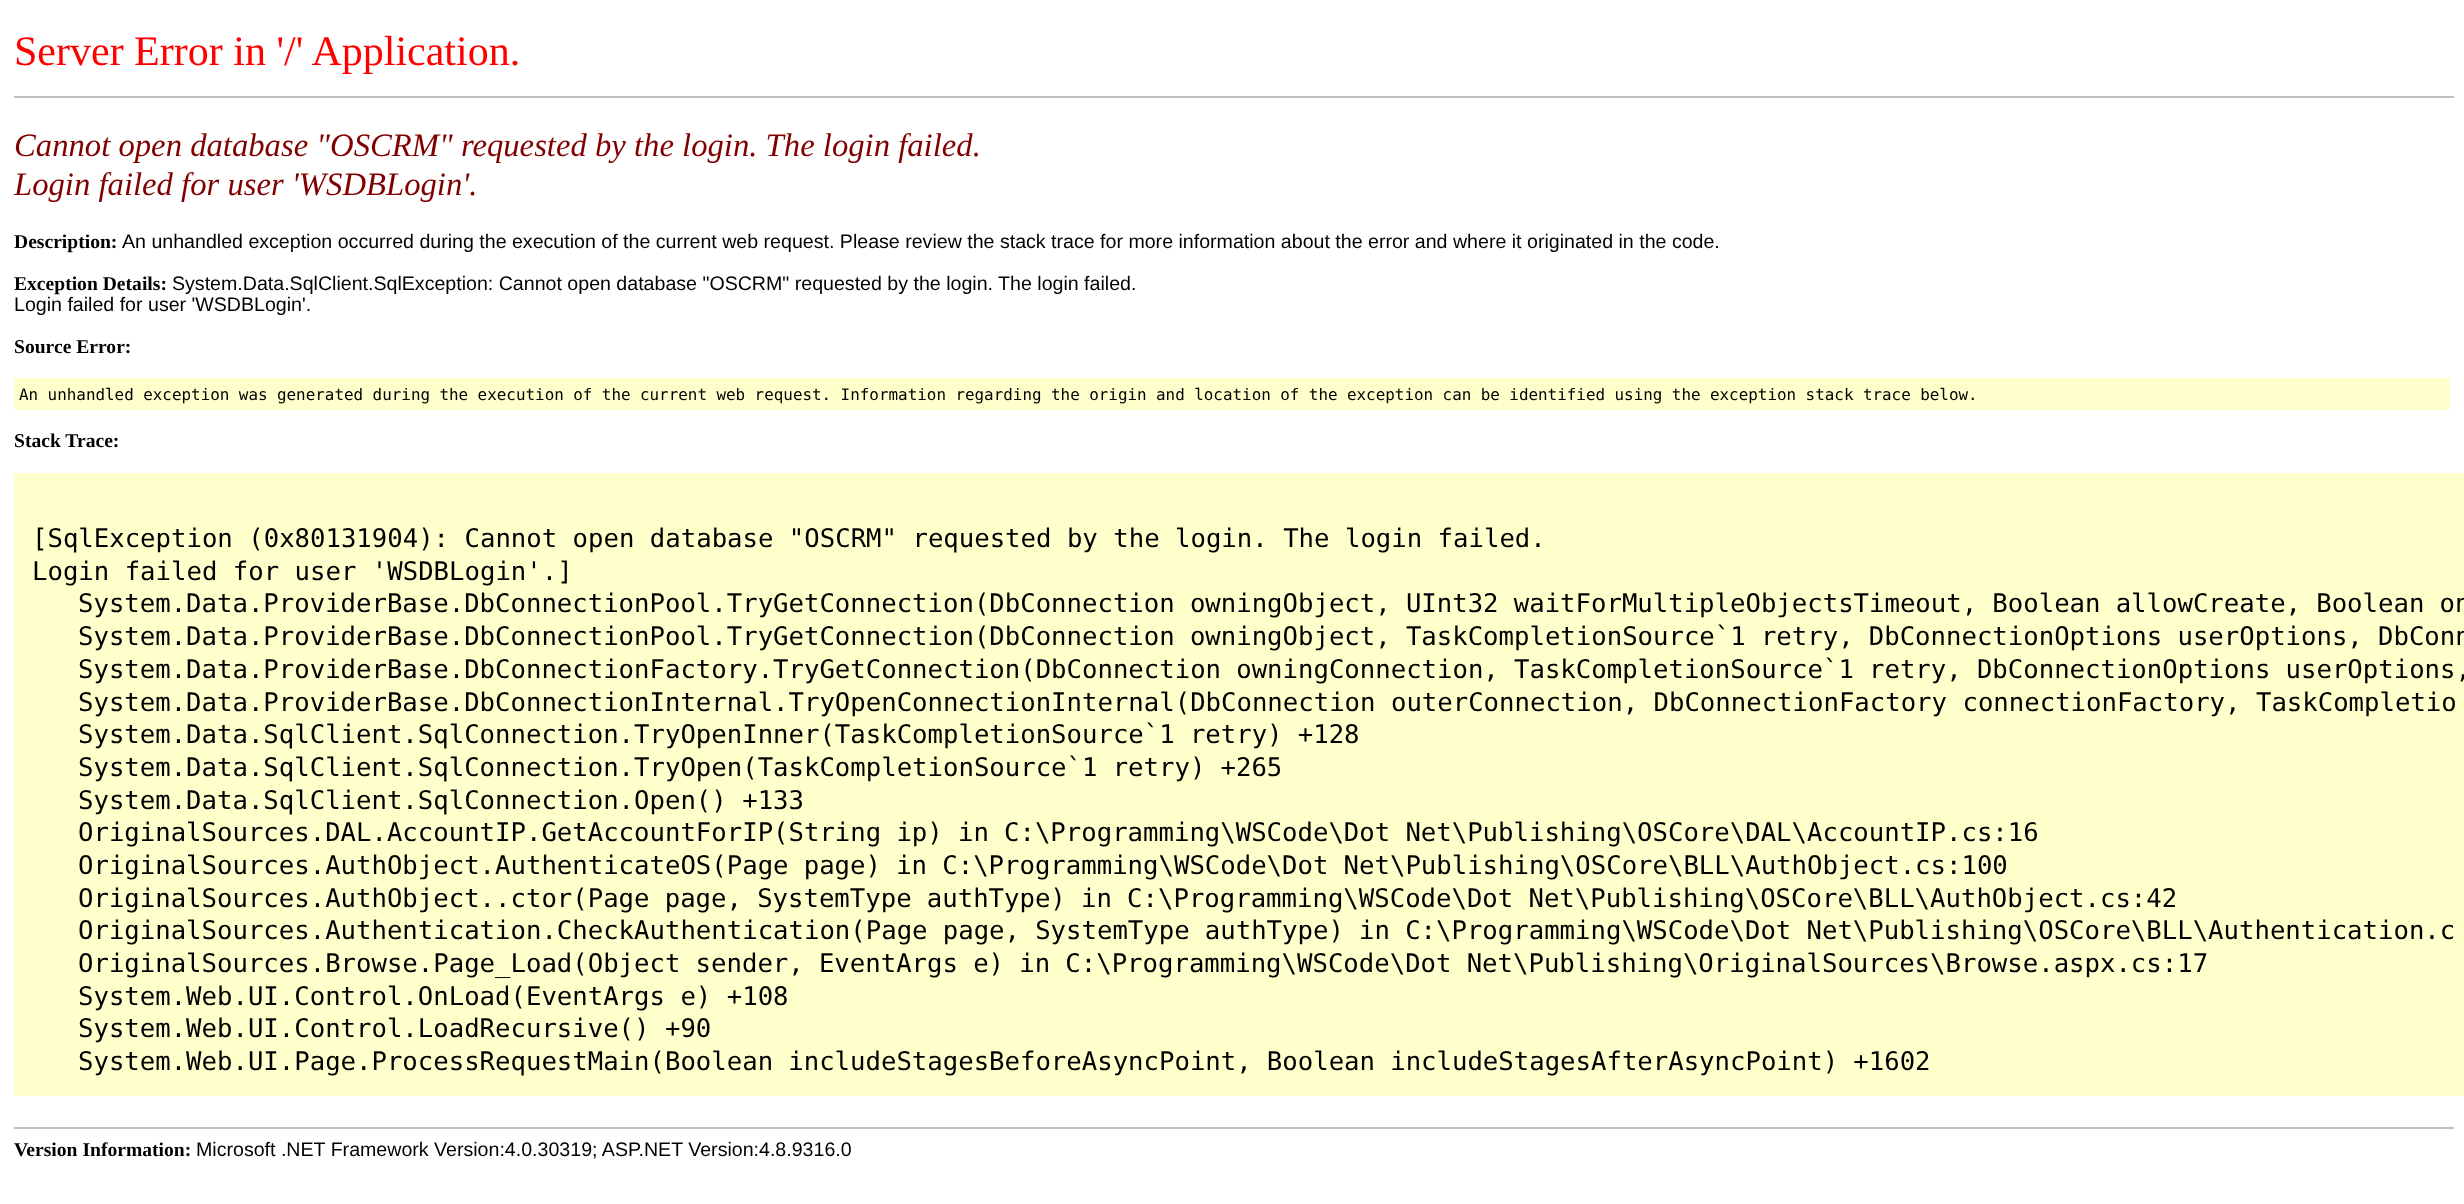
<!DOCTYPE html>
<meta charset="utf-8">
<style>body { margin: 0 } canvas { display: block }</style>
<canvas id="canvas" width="2464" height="1204"></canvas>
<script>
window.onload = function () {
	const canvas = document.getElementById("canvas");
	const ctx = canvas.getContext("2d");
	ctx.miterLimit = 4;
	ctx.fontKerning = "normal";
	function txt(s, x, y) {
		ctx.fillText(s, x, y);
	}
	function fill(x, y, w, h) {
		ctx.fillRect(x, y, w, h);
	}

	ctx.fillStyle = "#FFFFFF";
	fill(0, 0, 2464, 1204);
	ctx.fillStyle = "#C0C0C0";
	fill(14, 96, 2440, 2);
	ctx.fillStyle = "#FFFFCC";
	fill(14, 378, 2436, 32);
	fill(14, 473, 2450, 623);
	ctx.fillStyle = "#C0C0C0";
	fill(14, 1127, 2440, 2);
	ctx.font = "42px Liberation Serif";
	ctx.fillStyle = "#FF0000";
	txt("Server Error in '/' Application.", 14, 65);
	ctx.font = "italic 32.7px Liberation Serif";
	ctx.fillStyle = "#800000";
	txt("Cannot open database \"OSCRM\" requested by the login. The login failed.", 14, 156);
	txt("Login failed for user 'WSDBLogin'.", 14, 195);
	ctx.font = "bold 19.6px Liberation Serif";
	ctx.fillStyle = "#000000";
	txt("Description:", 14, 248);
	ctx.font = "19.6px Liberation Sans";
	txt("An unhandled exception occurred during the execution of the current web request. Please review the stack trace for more information about the error and where it originated in the code.", 122, 248);
	ctx.font = "bold 19.6px Liberation Serif";
	txt("Exception Details:", 14, 290);
	ctx.font = "19.6px Liberation Sans";
	txt("System.Data.SqlClient.SqlException: Cannot open database \"OSCRM\" requested by the login. The login failed.", 172, 290);
	txt("Login failed for user 'WSDBLogin'.", 14, 311);
	ctx.font = "bold 19.6px Liberation Serif";
	txt("Source Error:", 14, 353);
	ctx.wordSpacing = "-0.15px";
	ctx.font = "15.92px DejaVu Sans Mono";
	txt("An unhandled exception was generated during the execution of the current web request. Information regarding the origin and location of the exception can be identified using the exception stack trace below.", 19, 400);
	ctx.wordSpacing = "0px";
	ctx.font = "bold 19.6px Liberation Serif";
	txt("Stack Trace:", 14, 447);
	ctx.font = "25.67px DejaVu Sans Mono";
	txt("[SqlException (0x80131904): Cannot open database \"OSCRM\" requested by the login. The login failed.", 32, 547);
	txt("Login failed for user 'WSDBLogin'.]", 32, 580);
	ctx.wordSpacing = "-0.25px";
	txt("System.Data.ProviderBase.DbConnectionPool.TryGetConnection(DbConnection owningObject, UInt32 waitForMultipleObjectsTimeout, Boolean allowCreate, Boolean on", 78, 612);
	txt("System.Data.ProviderBase.DbConnectionPool.TryGetConnection(DbConnection owningObject, TaskCompletionSource`1 retry, DbConnectionOptions userOptions, DbConn", 78, 645);
	txt("System.Data.ProviderBase.DbConnectionFactory.TryGetConnection(DbConnection owningConnection, TaskCompletionSource`1 retry, DbConnectionOptions userOptions,", 78, 678);
	ctx.wordSpacing = "0px";
	txt("System.Data.ProviderBase.DbConnectionInternal.TryOpenConnectionInternal(DbConnection outerConnection, DbConnectionFactory connectionFactory, TaskCompletio", 78, 711);
	ctx.wordSpacing = "-0.25px";
	txt("System.Data.SqlClient.SqlConnection.TryOpenInner(TaskCompletionSource`1 retry) +128", 78, 743);
	txt("System.Data.SqlClient.SqlConnection.TryOpen(TaskCompletionSource`1 retry) +265", 78, 776);
	ctx.wordSpacing = "0px";
	txt("System.Data.SqlClient.SqlConnection.Open() +133", 78, 809);
	ctx.wordSpacing = "-0.25px";
	txt("OriginalSources.DAL.AccountIP.GetAccountForIP(String ip) in C:\\Programming\\WSCode\\Dot Net\\Publishing\\OSCore\\DAL\\AccountIP.cs:16", 78, 841);
	txt("OriginalSources.AuthObject.AuthenticateOS(Page page) in C:\\Programming\\WSCode\\Dot Net\\Publishing\\OSCore\\BLL\\AuthObject.cs:100", 78, 874);
	txt("OriginalSources.AuthObject..ctor(Page page, SystemType authType) in C:\\Programming\\WSCode\\Dot Net\\Publishing\\OSCore\\BLL\\AuthObject.cs:42", 78, 907);
	txt("OriginalSources.Authentication.CheckAuthentication(Page page, SystemType authType) in C:\\Programming\\WSCode\\Dot Net\\Publishing\\OSCore\\BLL\\Authentication.c", 78, 939);
	txt("OriginalSources.Browse.Page_Load(Object sender, EventArgs e) in C:\\Programming\\WSCode\\Dot Net\\Publishing\\OriginalSources\\Browse.aspx.cs:17", 78, 972);
	ctx.wordSpacing = "0px";
	txt("System.Web.UI.Control.OnLoad(EventArgs e) +108", 78, 1005);
	txt("System.Web.UI.Control.LoadRecursive() +90", 78, 1037);
	ctx.wordSpacing = "-0.25px";
	txt("System.Web.UI.Page.ProcessRequestMain(Boolean includeStagesBeforeAsyncPoint, Boolean includeStagesAfterAsyncPoint) +1602", 78, 1070);
	ctx.wordSpacing = "0px";
	ctx.font = "bold 19.6px Liberation Serif";
	txt("Version Information:", 14, 1156);
	ctx.font = "19.6px Liberation Sans";
	txt("Microsoft .NET Framework Version:4.0.30319; ASP.NET Version:4.8.9316.0", 196, 1156);
};
</script>
